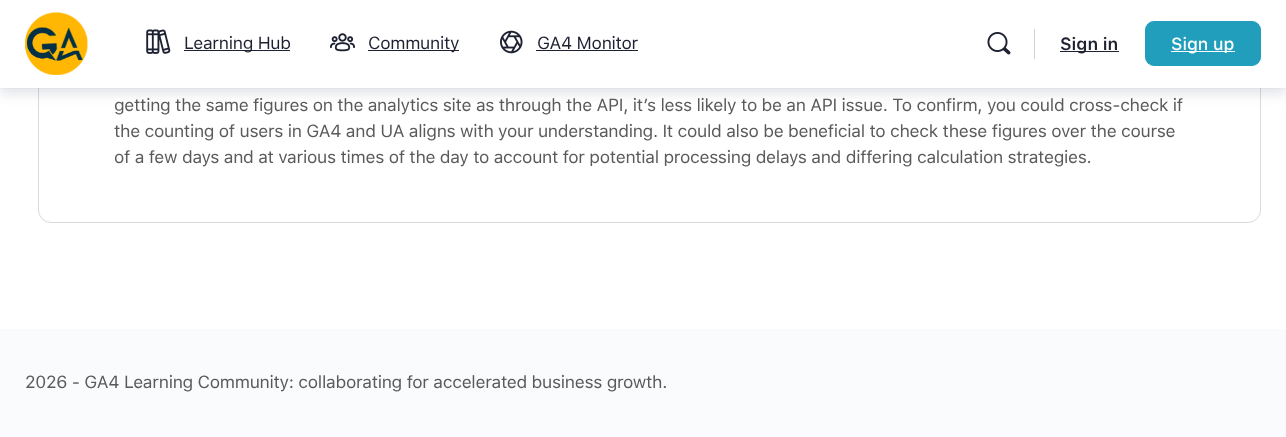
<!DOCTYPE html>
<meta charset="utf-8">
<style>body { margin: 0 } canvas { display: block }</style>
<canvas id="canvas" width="1286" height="437"></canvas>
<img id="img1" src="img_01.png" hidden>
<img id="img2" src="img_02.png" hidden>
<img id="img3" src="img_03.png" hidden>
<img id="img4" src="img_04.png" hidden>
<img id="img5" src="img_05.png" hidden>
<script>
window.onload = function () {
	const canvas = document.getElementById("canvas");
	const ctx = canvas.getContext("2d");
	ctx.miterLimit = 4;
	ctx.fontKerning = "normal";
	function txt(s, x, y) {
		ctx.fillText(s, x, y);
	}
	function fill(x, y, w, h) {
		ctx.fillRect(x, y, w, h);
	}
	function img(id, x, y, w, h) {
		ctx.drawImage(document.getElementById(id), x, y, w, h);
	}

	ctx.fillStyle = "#FFFFFF";
	fill(0, 0, 1286, 437);
	ctx.beginPath();
	ctx.roundRect(38.5, -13.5, 1222, 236, 12.5);
	ctx.strokeStyle = "#D6D9DD";
	ctx.stroke();
	ctx.fillStyle = "rgba(65, 71, 108, 0.15)";
	ctx.filter = "blur(6px)";
	ctx.beginPath();
	ctx.rect(0, 6, 1286, 88);
	ctx.fill();
	ctx.filter = "none";
	ctx.fillStyle = "rgba(139, 141, 157, 0.05)";
	fill(0, 88, 1286, 1);
	ctx.fillStyle = "#FFFFFF";
	fill(0, 0, 1286, 88);
	img("img1", 25, 12, 63, 63);
	img("img2", 146, 29, 25, 25);
	ctx.fillStyle = "#1E2132";
	fill(184, 50, 106, 1);
	img("img3", 330, 33, 25, 19);
	fill(368, 50, 91, 1);
	img("img4", 500, 30, 23, 24);
	fill(536, 50, 102, 1);
	img("img5", 987, 32, 24, 23);
	ctx.fillStyle = "#D2D3D6";
	fill(1034, 29, 1, 30);
	ctx.fillStyle = "#1E2132";
	fill(1060, 51, 59, 1);
	ctx.fillStyle = "#219EBC";
	ctx.beginPath();
	ctx.roundRect(1145.5, 21.5, 115, 44, 8.5);
	ctx.fill();
	ctx.strokeStyle = "#219EBC";
	ctx.stroke();
	ctx.fillStyle = "#FFFFFF";
	fill(1171, 51, 64, 1);
	ctx.fillStyle = "#FAFBFD";
	fill(0, 329, 1286, 108);
	ctx.letterSpacing = "-0.3px";
	ctx.font = "17.5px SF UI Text";
	ctx.fillStyle = "#1E2132";
	txt("Learning Hub", 184, 49);
	txt("Community", 368, 49);
	txt("GA4 Monitor", 537, 49);
	ctx.letterSpacing = "0px";
	ctx.font = "600 17.5px SF UI Text";
	txt("Sign in", 1060, 50);
	ctx.font = "500 17.5px SF UI Text";
	ctx.fillStyle = "#FFFFFF";
	txt("Sign up", 1171, 50);
	ctx.letterSpacing = "-0.3px";
	ctx.font = "17.5px SF UI Text";
	ctx.fillStyle = "#5A5A5A";
	txt("getting the same figures on the analytics site as through the API, it’s less likely to be an API issue. To confirm, you could cross-check if", 114, 111);
	txt("the counting of users in GA4 and UA aligns with your understanding. It could also be beneficial to check these figures over the course", 114, 137);
	txt("of a few days and at various times of the day to account for potential processing delays and differing calculation strategies.", 114, 163);
	txt("2026 - GA4 Learning Community: collaborating for accelerated business growth.", 25, 388);
};
</script>
